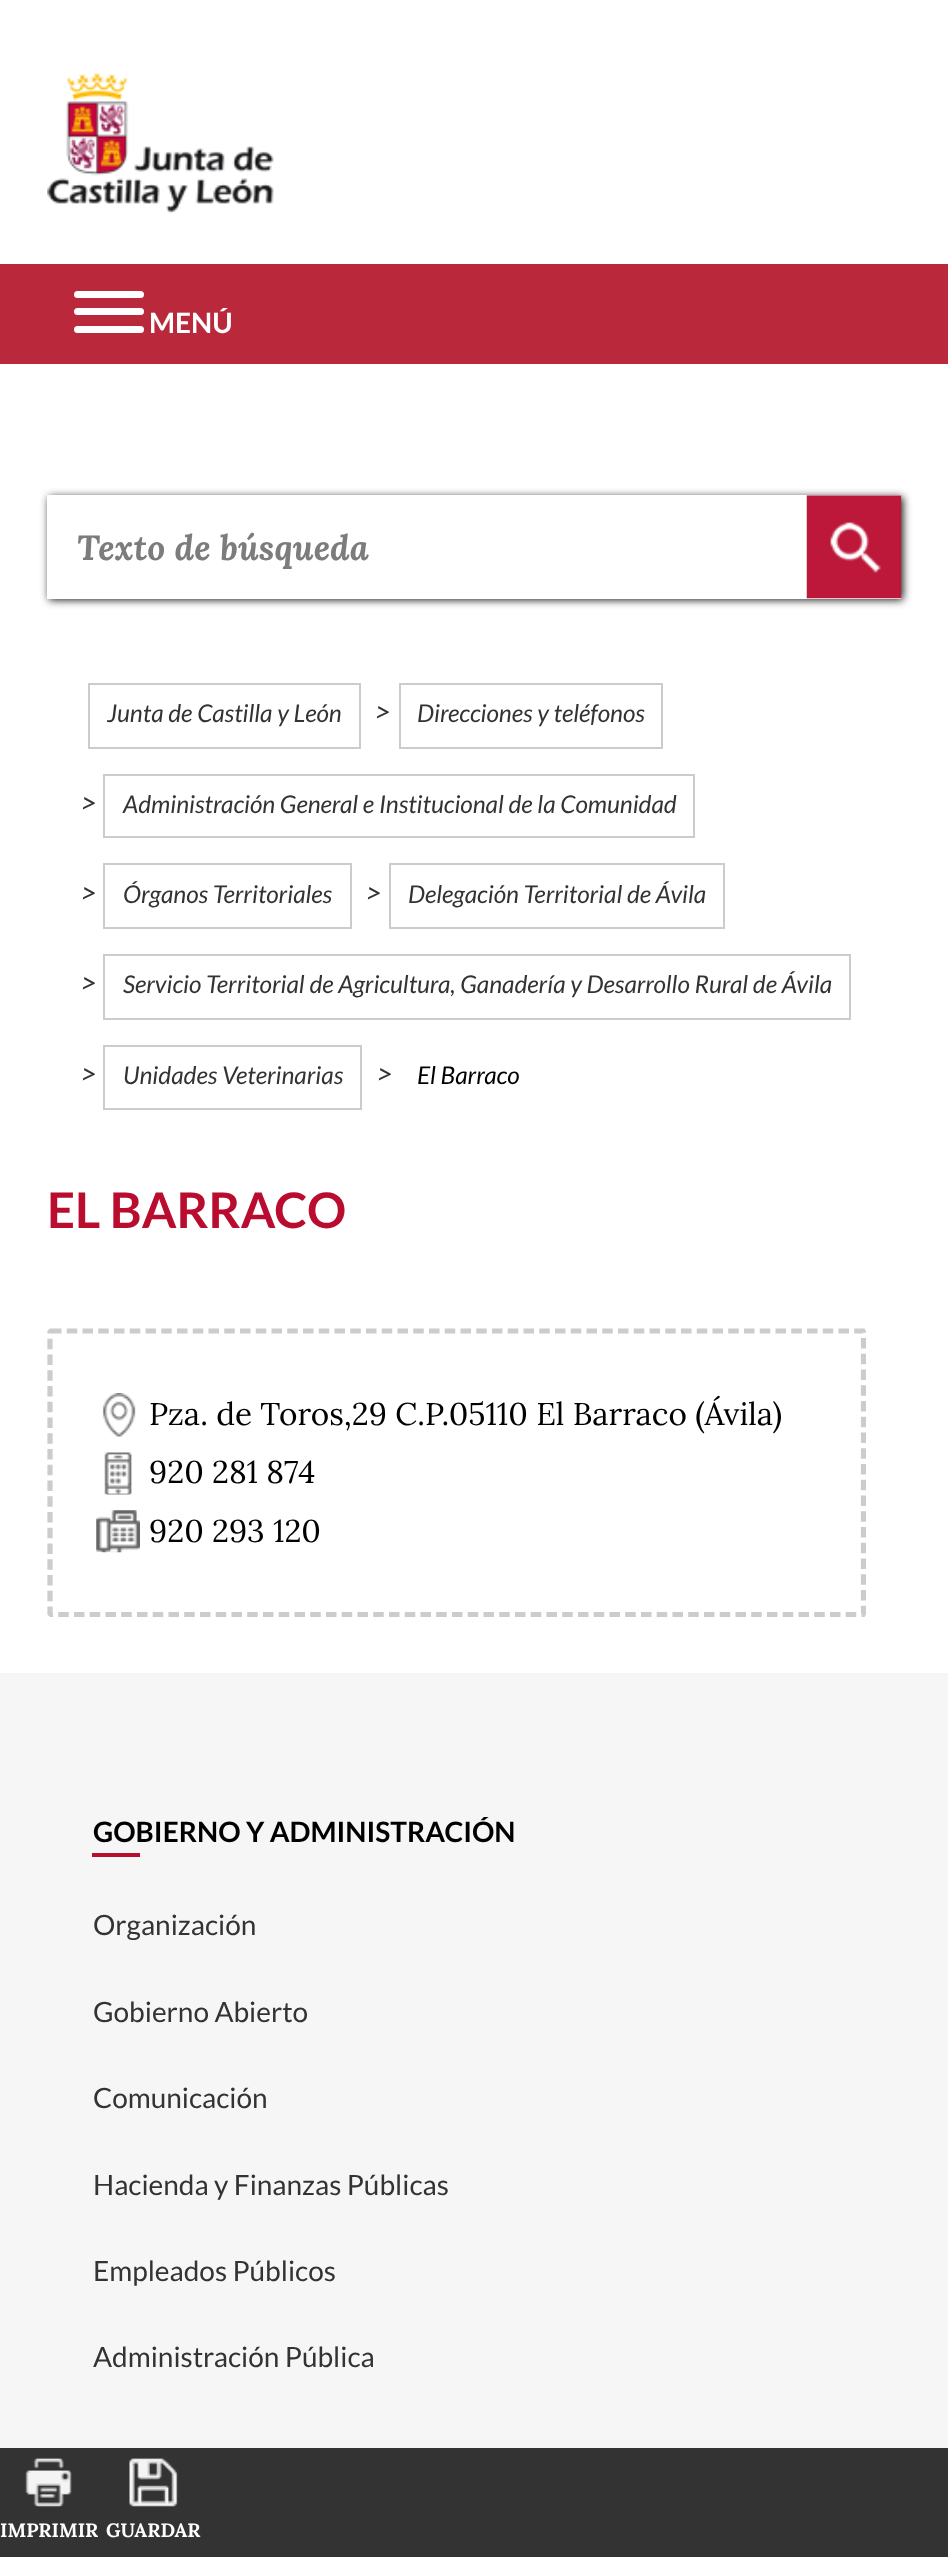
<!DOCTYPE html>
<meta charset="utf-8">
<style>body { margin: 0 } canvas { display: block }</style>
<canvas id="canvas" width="948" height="2557"></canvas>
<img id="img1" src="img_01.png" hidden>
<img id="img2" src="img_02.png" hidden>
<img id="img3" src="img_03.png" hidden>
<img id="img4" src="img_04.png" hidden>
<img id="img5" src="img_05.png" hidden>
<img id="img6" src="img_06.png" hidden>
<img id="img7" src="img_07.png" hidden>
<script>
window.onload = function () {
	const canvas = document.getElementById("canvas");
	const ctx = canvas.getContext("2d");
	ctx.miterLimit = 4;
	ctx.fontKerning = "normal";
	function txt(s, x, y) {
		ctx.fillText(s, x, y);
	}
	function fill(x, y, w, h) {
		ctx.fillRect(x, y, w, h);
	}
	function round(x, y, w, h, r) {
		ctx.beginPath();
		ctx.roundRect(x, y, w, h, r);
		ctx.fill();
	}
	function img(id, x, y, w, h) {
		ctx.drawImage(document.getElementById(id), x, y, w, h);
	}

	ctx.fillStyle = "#FFFFFF";
	fill(0, 0, 948, 2557);
	img("img1", 47, 72, 227, 141);
	ctx.fillStyle = "#BA283B";
	fill(0, 264, 948, 100);
	ctx.fillStyle = "#FFFFFF";
	round(74, 308, 70, 7, 3.5);
	round(74, 291, 70, 7, 3.5);
	round(74, 326, 70, 7, 3.5);
	ctx.save();
	ctx.beginPath();
	ctx.moveTo(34, 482);
	ctx.lineTo(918, 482);
	ctx.lineTo(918, 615);
	ctx.lineTo(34, 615);
	ctx.closePath();
	ctx.moveTo(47, 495);
	ctx.lineTo(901, 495);
	ctx.lineTo(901, 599);
	ctx.lineTo(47, 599);
	ctx.closePath();
	ctx.clip("evenodd");
	ctx.fillStyle = "#141A15";
	ctx.filter = "blur(4.5px)";
	ctx.beginPath();
	ctx.rect(49, 497, 854, 103);
	ctx.fill();
	ctx.filter = "none";
	ctx.restore();
	fill(47, 495, 763, 104);
	img("img2", 806, 495, 96, 104);
	ctx.strokeStyle = "#CCCCCC";
	ctx.lineWidth = 2;
	ctx.strokeRect(89, 684, 271, 64);
	ctx.strokeRect(400, 684, 262, 64);
	ctx.strokeRect(104, 775, 590, 62);
	ctx.strokeRect(104, 864, 247, 64);
	ctx.strokeRect(390, 864, 334, 64);
	ctx.strokeRect(104, 955, 746, 64);
	ctx.strokeRect(104, 1046, 257, 63);
	ctx.save();
	ctx.beginPath();
	ctx.rect(47, 1150, 819, 523);
	ctx.clip();
	ctx.beginPath();
	ctx.moveTo(51, 1331);
	ctx.lineTo(863, 1331);
	ctx.lineTo(863.5, 1332);
	ctx.lineTo(863.5, 1613.5);
	ctx.lineTo(863, 1614.5);
	ctx.lineTo(51, 1614.5);
	ctx.lineTo(50, 1613.5);
	ctx.lineTo(50, 1332);
	ctx.closePath();
	ctx.lineWidth = 5.2;
	ctx.setLineDash([10.5, 5.25]);
	ctx.stroke();
	ctx.restore();
	img("img3", 102, 1393, 34, 44);
	img("img4", 104, 1452, 28, 43);
	img("img5", 96, 1510, 44, 43);
	ctx.fillStyle = "#333333";
	fill(0, 2448, 948, 109);
	img("img6", 25, 2458, 47, 49);
	img("img7", 129, 2458, 49, 49);
	ctx.fillStyle = "#F6F6F6";
	fill(0, 1673, 948, 775);
	ctx.fillStyle = "#BA0C2F";
	fill(92, 1853, 48, 4);
	ctx.font = "bold 28px Lato";
	ctx.fillStyle = "#FFFFFF";
	txt("MENÚ", 149, 333);
	ctx.font = "italic bold 35px Lora";
	ctx.fillStyle = "#7C7C7C";
	txt("Texto de búsqueda", 77, 560);
	ctx.font = "italic 24.5px Lato";
	ctx.fillStyle = "#333333";
	txt("Junta de Castilla y León", 107, 722);
	ctx.font = "italic 29px Lato";
	txt(">", 375, 722);
	ctx.font = "italic 24.5px Lato";
	txt("Direcciones y teléfonos", 417, 722);
	ctx.font = "italic 29px Lato";
	txt(">", 81, 813);
	ctx.font = "italic 24.5px Lato";
	txt("Administración General e Institucional de la Comunidad", 123, 813);
	ctx.font = "italic 29px Lato";
	txt(">", 81, 903);
	ctx.font = "italic 24.5px Lato";
	txt("Órganos Territoriales", 123, 903);
	ctx.font = "italic 29px Lato";
	txt(">", 366, 903);
	ctx.font = "italic 24.5px Lato";
	txt("Delegación Territorial de Ávila", 408, 903);
	ctx.font = "italic 29px Lato";
	txt(">", 81, 993);
	ctx.font = "italic 24.5px Lato";
	txt("Servicio Territorial de Agricultura, Ganadería y Desarrollo Rural de Ávila", 123, 993);
	ctx.font = "italic 29px Lato";
	txt(">", 81, 1084);
	ctx.font = "italic 24.5px Lato";
	txt("Unidades Veterinarias", 123, 1084);
	ctx.font = "italic 29px Lato";
	txt(">", 377, 1084);
	ctx.font = "italic 24.5px Lato";
	ctx.fillStyle = "#000000";
	txt("El Barraco", 417, 1084);
	ctx.font = "bold 49px Lato";
	ctx.fillStyle = "#BA0C2F";
	txt("EL BARRACO", 47, 1228);
	ctx.font = "31.5px Lora";
	ctx.fillStyle = "#000000";
	txt("Pza. de Toros,29 C.P.05110 El Barraco (Ávila)", 149, 1425);
	txt("920 281 874", 149, 1483);
	txt("920 293 120", 149, 1542);
	ctx.font = "bold 19.25px Lora";
	ctx.fillStyle = "#FFFFFF";
	txt("IMPRIMIR", 0, 2537);
	txt("GUARDAR", 106, 2537);
	ctx.font = "bold 28px Lato";
	ctx.fillStyle = "#000000";
	txt("GOBIERNO Y ADMINISTRACIÓN", 93, 1842);
	ctx.font = "28px Lato";
	ctx.fillStyle = "#333333";
	txt("Organización", 93, 1935);
	txt("Gobierno Abierto", 93, 2022);
	txt("Comunicación", 93, 2108);
	txt("Hacienda y Finanzas Públicas", 93, 2195);
	txt("Empleados Públicos", 93, 2281);
	txt("Administración Pública", 93, 2367);
};
</script>
